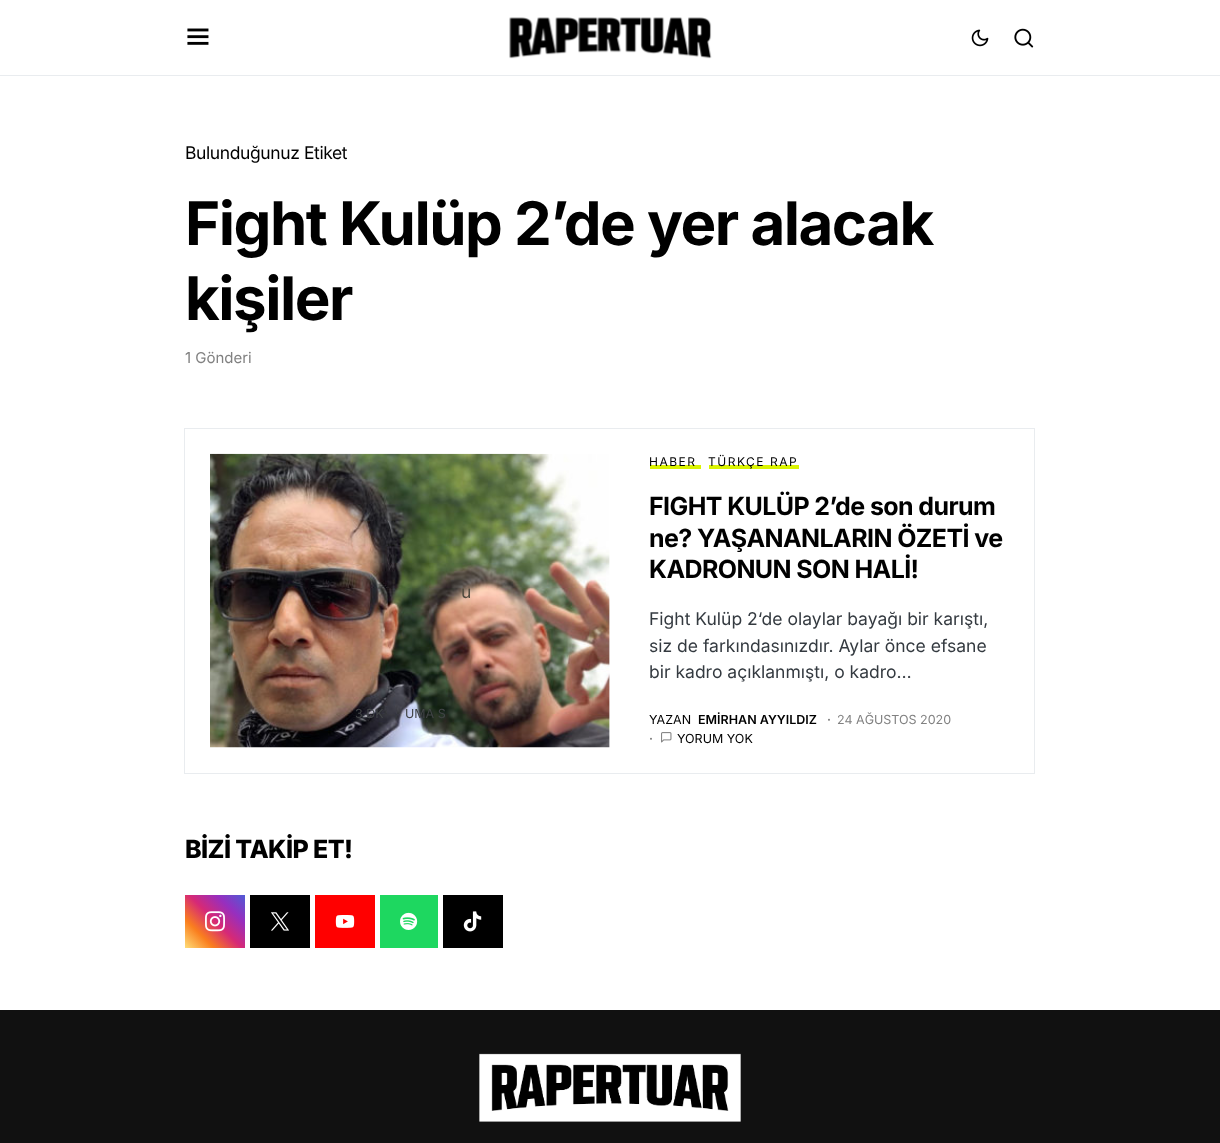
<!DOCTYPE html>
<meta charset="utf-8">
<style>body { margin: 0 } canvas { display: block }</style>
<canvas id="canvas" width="1220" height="1143"></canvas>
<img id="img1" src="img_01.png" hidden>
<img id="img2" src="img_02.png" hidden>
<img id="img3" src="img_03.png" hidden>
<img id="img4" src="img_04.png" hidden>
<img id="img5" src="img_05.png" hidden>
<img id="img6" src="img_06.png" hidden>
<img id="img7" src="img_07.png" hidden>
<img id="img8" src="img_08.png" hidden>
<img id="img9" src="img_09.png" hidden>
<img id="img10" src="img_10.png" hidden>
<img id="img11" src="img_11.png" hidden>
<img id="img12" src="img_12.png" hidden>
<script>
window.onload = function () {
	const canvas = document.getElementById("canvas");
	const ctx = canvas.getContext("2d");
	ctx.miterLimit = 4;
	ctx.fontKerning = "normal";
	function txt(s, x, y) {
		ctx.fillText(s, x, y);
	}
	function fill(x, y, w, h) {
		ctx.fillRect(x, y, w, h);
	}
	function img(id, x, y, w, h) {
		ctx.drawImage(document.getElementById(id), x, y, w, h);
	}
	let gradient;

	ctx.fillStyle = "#FFFFFF";
	fill(0, 0, 1220, 1143);
	ctx.fillStyle = "#E9ECEF";
	fill(0, 75, 1220, 1);
	img("img1", 187, 28, 22, 17);
	img("img2", 509, 17, 203, 42);
	img("img3", 971, 29, 18, 18);
	img("img4", 1014, 28, 20, 20);
	ctx.strokeStyle = "#E9ECEF";
	ctx.strokeRect(184.5, 428.5, 850, 345);
	img("img5", 210, 453, 400, 295);
	ctx.fillStyle = "#DBF402";
	fill(650, 465, 51, 4);
	fill(709, 465, 90, 4);
	img("img6", 661, 732, 11, 11);
	gradient = ctx.createLinearGradient(187, 949, 243, 893);
	gradient.addColorStop(0, "#FEDA75");
	gradient.addColorStop(0.25, "#FA7E1E");
	gradient.addColorStop(0.5, "#D62976");
	gradient.addColorStop(0.75, "#962FBF");
	gradient.addColorStop(1, "#4F5BD5");
	ctx.fillStyle = gradient;
	fill(185, 895, 60, 53);
	img("img7", 205, 911, 20, 21);
	ctx.fillStyle = "#000000";
	fill(250, 895, 60, 53);
	img("img8", 271, 912, 18, 19);
	ctx.fillStyle = "#FF0000";
	fill(315, 895, 60, 53);
	img("img9", 335, 915, 20, 13);
	ctx.fillStyle = "#1ED760";
	fill(380, 895, 58, 53);
	img("img10", 400, 912, 18, 18);
	ctx.fillStyle = "#000000";
	fill(443, 895, 60, 53);
	img("img11", 463, 911, 19, 21);
	ctx.fillStyle = "#111111";
	fill(0, 1010, 1220, 133);
	img("img12", 479, 1053, 262, 69);
	ctx.letterSpacing = "-0.4px";
	ctx.font = "17.5px Inter";
	ctx.fillStyle = "#000000";
	txt("Bulunduğunuz Etiket", 185, 159);
	ctx.letterSpacing = "-1.5px";
	ctx.font = "bold 60px Inter";
	txt("Fight Kulüp 2’de yer alacak", 185, 245);
	txt("kişiler", 185, 320);
	ctx.letterSpacing = "0px";
	ctx.font = "15px Inter";
	ctx.fillStyle = "#818181";
	txt("1 Gönderi", 185, 363);
	ctx.letterSpacing = "-0.4px";
	ctx.font = "17.5px Inter";
	ctx.fillStyle = "#524C40";
	txt("u", 461, 598);
	ctx.letterSpacing = "0px";
	ctx.font = "12.5px Inter";
	ctx.fillStyle = "#414446";
	txt("3 DK", 355, 718);
	txt("UMA S", 405, 718);
	ctx.letterSpacing = "1.5px";
	ctx.font = "12px Inter";
	ctx.fillStyle = "#000000";
	txt("HABER", 649, 466);
	txt("TÜRKÇE RAP", 708, 466);
	ctx.letterSpacing = "-0.6px";
	ctx.font = "bold 25px Inter";
	txt("FIGHT KULÜP 2’de son durum", 649, 515);
	txt("ne? YAŞANANLARIN ÖZETİ ve", 649, 547);
	txt("KADRONUN SON HALİ!", 649, 578);
	ctx.letterSpacing = "0px";
	ctx.font = "17.5px Inter";
	ctx.fillStyle = "#343A40";
	txt("Fight Kulüp 2‘de olaylar bayağı bir karıştı,", 649, 625);
	txt("siz de farkındasınızdır. Aylar önce efsane", 649, 652);
	txt("bir kadro açıklanmıştı, o kadro…", 649, 678);
	ctx.font = "12.5px Inter";
	ctx.fillStyle = "#000000";
	txt("YAZAN", 649, 724);
	ctx.font = "600 12.5px Inter";
	txt("EMİRHAN AYYILDIZ", 698, 724);
	ctx.fillStyle = "#818181";
	txt("·", 827, 724);
	ctx.font = "12.5px Inter";
	txt("24 AĞUSTOS 2020", 837, 724);
	ctx.font = "600 12.5px Inter";
	txt("·", 649, 743);
	ctx.font = "12.5px Inter";
	ctx.fillStyle = "#000000";
	txt("YORUM YOK", 677, 743);
	ctx.letterSpacing = "-0.6px";
	ctx.font = "800 25px Inter";
	txt("BİZİ TAKİP ET!", 185, 858);
};
</script>
